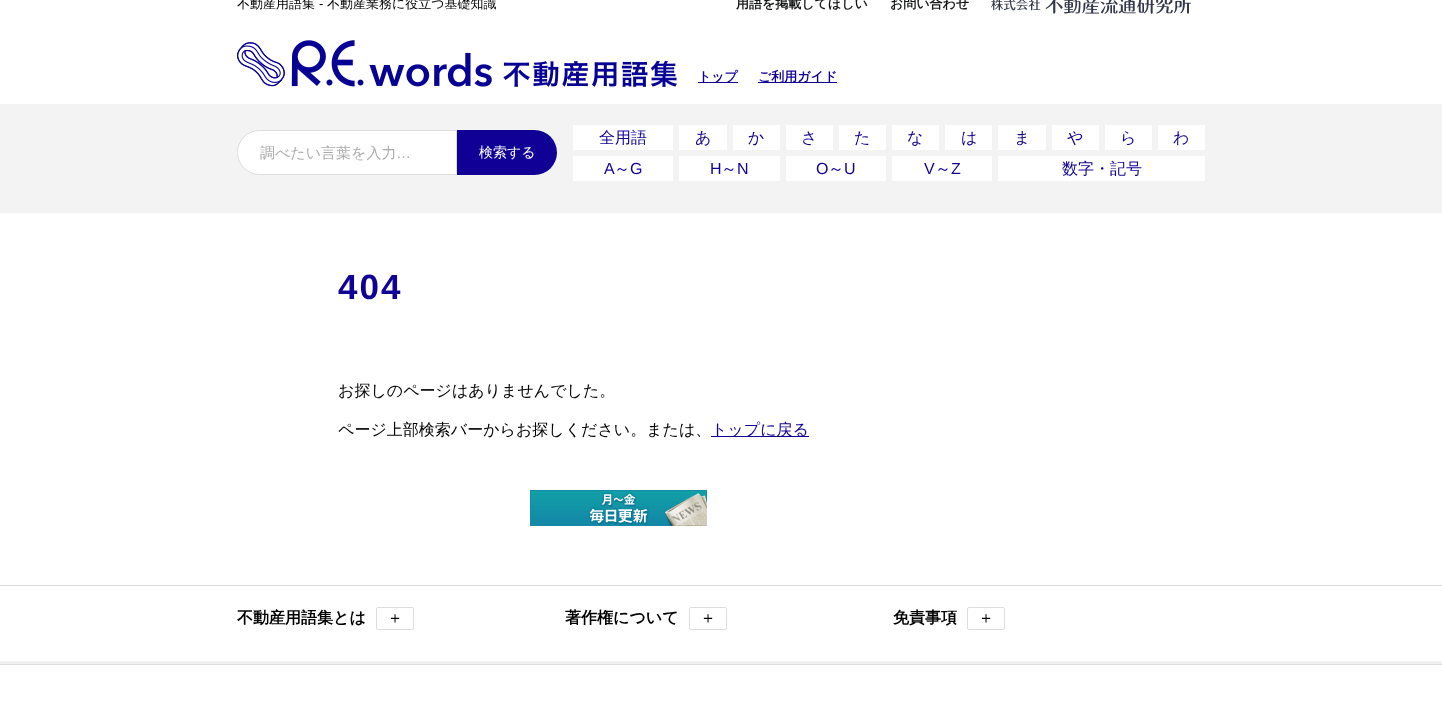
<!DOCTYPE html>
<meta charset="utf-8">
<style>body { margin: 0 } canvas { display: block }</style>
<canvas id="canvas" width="1442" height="725"></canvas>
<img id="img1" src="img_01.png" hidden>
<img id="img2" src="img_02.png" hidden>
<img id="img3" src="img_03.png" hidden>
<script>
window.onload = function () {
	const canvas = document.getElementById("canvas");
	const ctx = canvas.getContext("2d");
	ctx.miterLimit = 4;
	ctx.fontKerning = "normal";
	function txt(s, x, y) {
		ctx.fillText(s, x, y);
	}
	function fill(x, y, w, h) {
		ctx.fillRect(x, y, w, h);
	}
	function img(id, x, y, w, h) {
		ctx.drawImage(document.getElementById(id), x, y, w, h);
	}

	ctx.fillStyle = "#FFFFFF";
	fill(0, 0, 1442, 725);
	img("img1", 991, 0, 200, 14);
	img("img2", 237, 40, 440, 47);
	ctx.fillStyle = "#110095";
	fill(698, 82, 40, 1);
	fill(758, 82, 79, 1);
	ctx.fillStyle = "#F3F3F3";
	fill(0, 104, 1442, 109);
	ctx.fillStyle = "#FFFFFF";
	ctx.beginPath();
	ctx.roundRect(237.5, 130.5, 219, 44, [22, 0, 0, 22]);
	ctx.fill();
	ctx.strokeStyle = "#DDDDDD";
	ctx.stroke();
	ctx.fillStyle = "#110095";
	ctx.beginPath();
	ctx.roundRect(457, 130, 100, 45, [0, 22.5, 22.5, 0]);
	ctx.fill();
	ctx.fillStyle = "#FFFFFF";
	fill(573, 125, 100, 25);
	fill(679, 125, 48, 25);
	fill(733, 125, 47, 25);
	fill(786, 125, 47, 25);
	fill(839, 125, 47, 25);
	fill(892, 125, 47, 25);
	fill(945, 125, 47, 25);
	fill(998, 125, 48, 25);
	fill(1052, 125, 47, 25);
	fill(1105, 125, 47, 25);
	fill(1158, 125, 47, 25);
	fill(573, 156, 100, 25);
	fill(679, 156, 101, 25);
	fill(786, 156, 100, 25);
	fill(892, 156, 100, 25);
	fill(998, 156, 207, 25);
	ctx.fillStyle = "#110095";
	fill(711, 436, 98, 1);
	img("img3", 530, 490, 177, 36);
	ctx.fillStyle = "#DDDDDD";
	fill(0, 664, 1442, 1);
	fill(0, 585, 1442, 1);
	ctx.beginPath();
	ctx.roundRect(376.5, 607.5, 37, 22, 1.5);
	ctx.stroke();
	ctx.beginPath();
	ctx.roundRect(689.5, 607.5, 37, 22, 1.5);
	ctx.stroke();
	ctx.beginPath();
	ctx.roundRect(967.5, 607.5, 37, 22, 1.5);
	ctx.stroke();
	ctx.fillStyle = "#F1F1F1";
	fill(0, 661, 1442, 3);
	ctx.font = "500 13px WenQuanYi Zen Hei";
	ctx.fillStyle = "#000000";
	txt("不動産用語集", 237, 8);
	ctx.font = "13px Liberation Sans";
	txt("-", 319, 8);
	ctx.font = "500 13px WenQuanYi Zen Hei";
	txt("不動産業務に役立つ基礎知識", 327, 8);
	ctx.font = "bold 13px WenQuanYi Zen Hei";
	ctx.fillStyle = "#151616";
	txt("用語を掲載してほしい", 736, 8);
	txt("お問い合わせ", 890, 8);
	ctx.fillStyle = "#110095";
	txt("トップ", 698, 81);
	txt("ご利用ガイド", 758, 81);
	ctx.font = "500 15px WenQuanYi Zen Hei";
	ctx.fillStyle = "#AAAAAA";
	txt("調べたい言葉を入力", 260, 158);
	ctx.font = "15px Liberation Sans";
	txt("…", 396, 158);
	ctx.font = "500 14px WenQuanYi Zen Hei";
	ctx.fillStyle = "#FFFFFF";
	txt("検索する", 479, 157);
	ctx.font = "500 16px WenQuanYi Zen Hei";
	ctx.fillStyle = "#110095";
	txt("全用語", 599, 143);
	txt("あ", 695, 143);
	txt("か", 748, 143);
	txt("さ", 801, 143);
	txt("た", 854, 143);
	txt("な", 907, 143);
	txt("は", 961, 143);
	txt("ま", 1014, 143);
	txt("や", 1067, 143);
	txt("ら", 1120, 143);
	txt("わ", 1173, 143);
	ctx.font = "16px Liberation Sans";
	txt("A", 604, 174);
	ctx.font = "500 16px WenQuanYi Zen Hei";
	txt("～", 614, 174);
	ctx.font = "16px Liberation Sans";
	txt("G", 630, 174);
	txt("H", 710, 174);
	ctx.font = "500 16px WenQuanYi Zen Hei";
	txt("～", 721, 174);
	ctx.font = "16px Liberation Sans";
	txt("N", 737, 174);
	txt("O", 816, 174);
	ctx.font = "500 16px WenQuanYi Zen Hei";
	txt("～", 828, 174);
	ctx.font = "16px Liberation Sans";
	txt("U", 844, 174);
	txt("V", 924, 174);
	ctx.font = "500 16px WenQuanYi Zen Hei";
	txt("～", 935, 174);
	ctx.font = "16px Liberation Sans";
	txt("Z", 951, 174);
	ctx.font = "500 16px WenQuanYi Zen Hei";
	txt("数字・記号", 1062, 174);
	ctx.letterSpacing = "2px";
	ctx.font = "bold 35px Liberation Sans";
	txt("404", 338, 299);
	ctx.letterSpacing = "0px";
	ctx.font = "500 16px WenQuanYi Zen Hei";
	ctx.fillStyle = "#000000";
	txt("お探しのページはありませんでした。", 338, 396);
	txt("ページ上部検索バーからお探しください。または、", 338, 435);
	ctx.fillStyle = "#110095";
	txt("トップに戻る", 711, 435);
	ctx.font = "bold 16px WenQuanYi Zen Hei";
	ctx.fillStyle = "#000000";
	txt("不動産用語集とは", 237, 623);
	ctx.font = "500 16px WenQuanYi Zen Hei";
	txt("＋", 387, 623);
	ctx.font = "bold 16px WenQuanYi Zen Hei";
	txt("著作権について", 565, 623);
	ctx.font = "500 16px WenQuanYi Zen Hei";
	txt("＋", 700, 623);
	ctx.font = "bold 16px WenQuanYi Zen Hei";
	txt("免責事項", 893, 623);
	ctx.font = "500 16px WenQuanYi Zen Hei";
	txt("＋", 978, 623);
};
</script>
